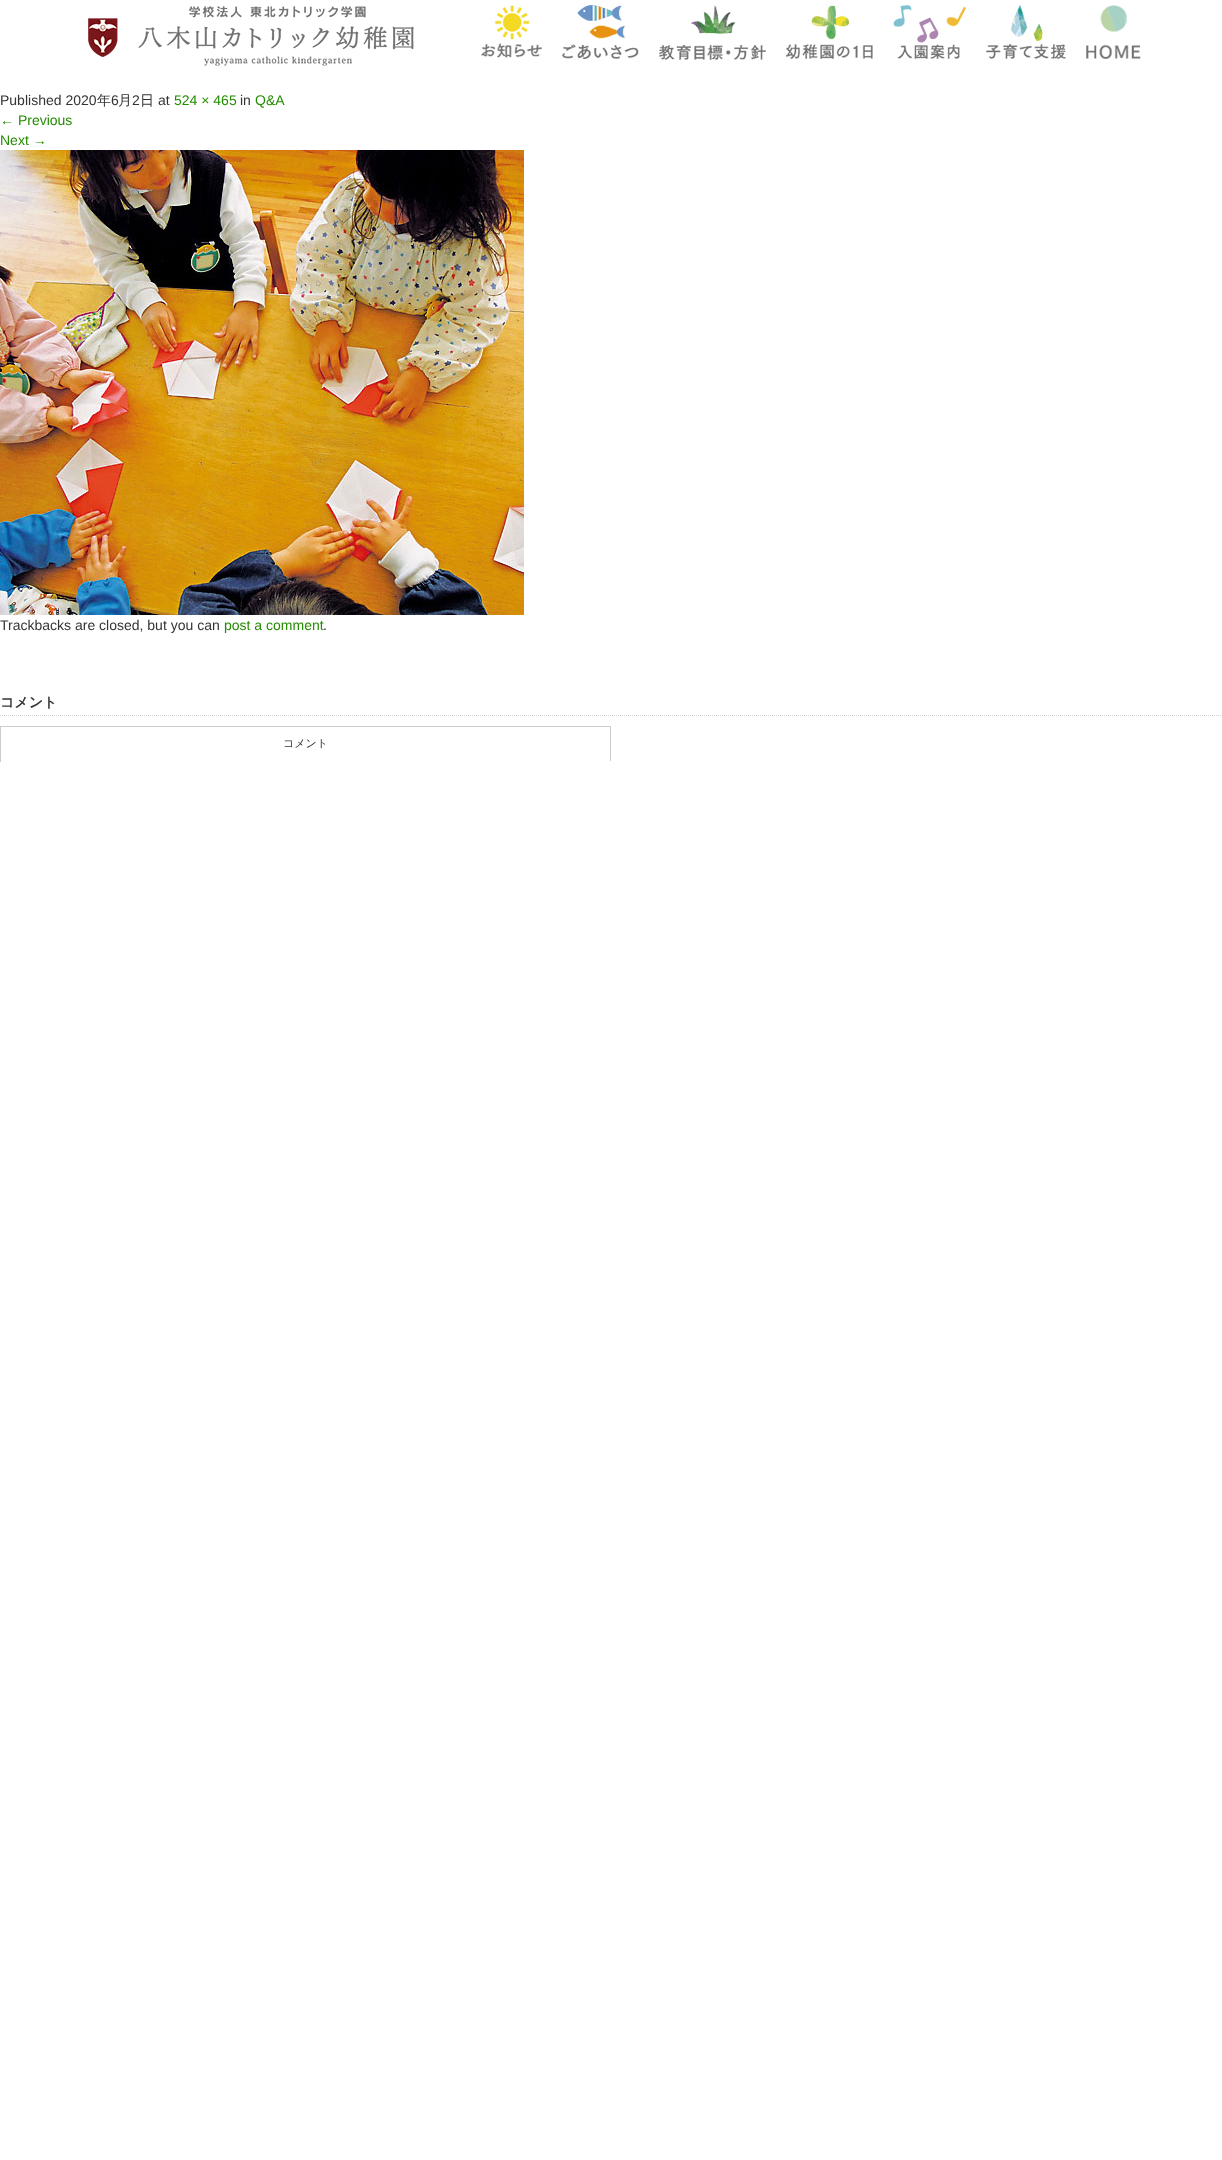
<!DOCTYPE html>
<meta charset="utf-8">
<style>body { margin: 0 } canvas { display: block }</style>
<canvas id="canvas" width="1222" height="2160"></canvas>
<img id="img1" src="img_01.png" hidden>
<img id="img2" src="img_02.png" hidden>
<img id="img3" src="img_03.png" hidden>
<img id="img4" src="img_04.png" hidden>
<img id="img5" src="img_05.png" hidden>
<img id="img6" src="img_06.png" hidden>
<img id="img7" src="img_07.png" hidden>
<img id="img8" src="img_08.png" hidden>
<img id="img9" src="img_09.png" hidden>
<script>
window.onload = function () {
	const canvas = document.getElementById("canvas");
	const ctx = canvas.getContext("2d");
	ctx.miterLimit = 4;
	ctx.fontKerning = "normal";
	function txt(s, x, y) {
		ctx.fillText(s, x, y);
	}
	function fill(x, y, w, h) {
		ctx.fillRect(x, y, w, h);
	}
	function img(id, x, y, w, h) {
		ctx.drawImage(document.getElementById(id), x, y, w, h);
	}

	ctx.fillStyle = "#FFFFFF";
	fill(0, 0, 1222, 2160);
	img("img1", 88, 6, 326, 60);
	img("img2", 481, 5, 61, 53);
	img("img3", 562, 5, 77, 54);
	img("img4", 659, 5, 107, 55);
	img("img5", 786, 5, 87, 54);
	img("img6", 893, 5, 73, 54);
	img("img7", 986, 5, 80, 54);
	img("img8", 1086, 5, 55, 54);
	img("img9", 0, 150, 524, 465);
	ctx.beginPath();
	ctx.moveTo(0, 715.5);
	ctx.lineTo(1222, 715.5);
	ctx.strokeStyle = "#D3D3D3";
	ctx.setLineDash([1, 1]);
	ctx.stroke();
	ctx.fillStyle = "#CCCCCC";
	fill(0, 726, 611, 1);
	fill(610, 726, 1, 36);
	ctx.fillStyle = "#FFFFFF";
	fill(610, 761, 1, 1);
	ctx.fillStyle = "#CCCCCC";
	fill(0, 726, 1, 36);
	ctx.font = "14px Liberation Sans";
	ctx.fillStyle = "#333333";
	txt("Published 2020", 0, 105);
	ctx.font = "500 14px WenQuanYi Zen Hei";
	txt("年", 97, 105);
	ctx.font = "14px Liberation Sans";
	txt("6", 111, 105);
	ctx.font = "500 14px WenQuanYi Zen Hei";
	txt("月", 118, 105);
	ctx.font = "14px Liberation Sans";
	txt("2", 132, 105);
	ctx.font = "500 14px WenQuanYi Zen Hei";
	txt("日", 140, 105);
	ctx.font = "14px Liberation Sans";
	txt("at", 158, 105);
	ctx.fillStyle = "#238C00";
	txt("524 × 465", 174, 105);
	ctx.fillStyle = "#333333";
	txt("in", 240, 105);
	ctx.fillStyle = "#238C00";
	txt("Q&A", 255, 105);
	txt("← Previous", 0, 125);
	txt("Next →", 0, 145);
	ctx.fillStyle = "#333333";
	txt("Trackbacks are closed, but you can", 0, 630);
	ctx.fillStyle = "#238C00";
	txt("post a comment", 224, 630);
	ctx.fillStyle = "#333333";
	txt(".", 323, 630);
	ctx.font = "bold 14px WenQuanYi Zen Hei";
	txt("コメント", 0, 707);
	ctx.font = "500 11px WenQuanYi Zen Hei";
	txt("コメント", 283, 747);
};
</script>
